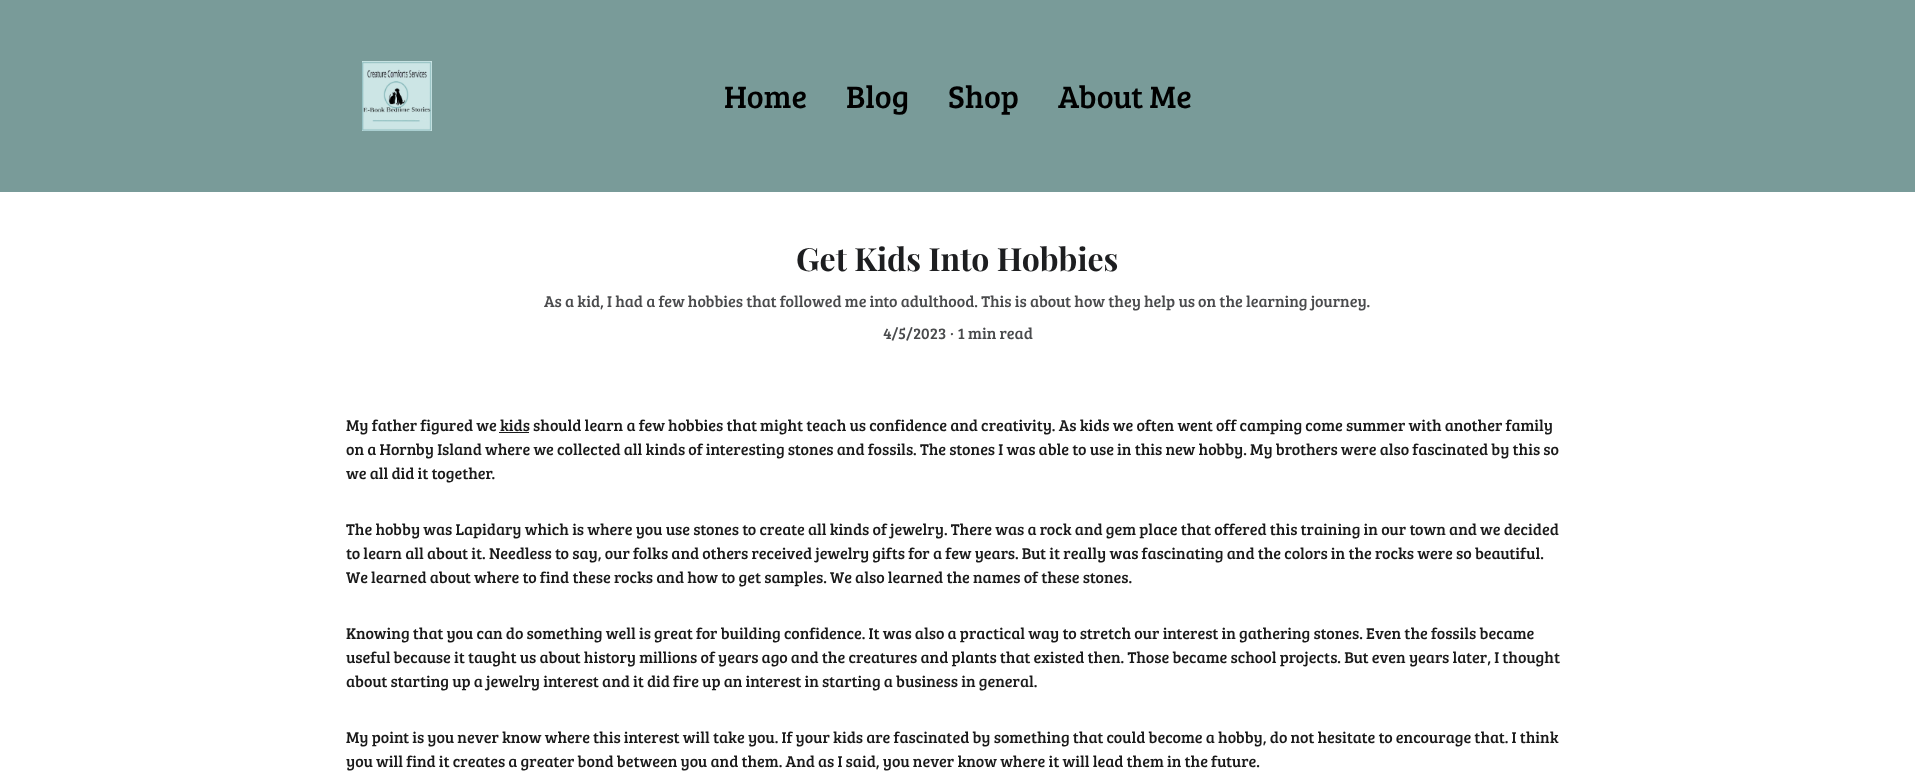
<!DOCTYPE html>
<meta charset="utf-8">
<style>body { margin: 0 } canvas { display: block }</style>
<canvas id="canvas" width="1915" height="775"></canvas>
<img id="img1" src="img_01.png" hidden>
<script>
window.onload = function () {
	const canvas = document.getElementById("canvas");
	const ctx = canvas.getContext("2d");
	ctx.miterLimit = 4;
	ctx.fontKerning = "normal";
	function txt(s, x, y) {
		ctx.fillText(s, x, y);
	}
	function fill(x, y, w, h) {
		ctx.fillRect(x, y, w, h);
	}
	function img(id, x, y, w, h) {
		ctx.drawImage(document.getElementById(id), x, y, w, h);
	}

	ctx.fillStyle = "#FFFFFF";
	fill(0, 0, 1915, 775);
	ctx.fillStyle = "#799B99";
	fill(0, 0, 1915, 192);
	img("img1", 362, 61, 70, 70);
	ctx.fillStyle = "#1A1A1A";
	fill(499, 432, 30, 1);
	ctx.font = "32px Bree Serif";
	ctx.fillStyle = "#000000";
	txt("Home", 724, 108);
	txt("Blog", 846, 108);
	txt("Shop", 948, 108);
	txt("About Me", 1058, 108);
	ctx.font = "bold 32px Playfair Display";
	ctx.fillStyle = "#1D1E20";
	txt("Get Kids Into Hobbies", 796, 271);
	ctx.font = "16px Bree Serif";
	ctx.fillStyle = "#4A4B4D";
	txt("As a kid, I had a few hobbies that followed me into adulthood. This is about how they help us on the learning journey.", 544, 307);
	txt("4/5/2023 · 1 min read", 883, 339);
	ctx.fillStyle = "#1A1A1A";
	txt("My father figured we kids should learn a few hobbies that might teach us confidence and creativity. As kids we often went off camping come summer with another family", 346, 431);
	txt("on a Hornby Island where we collected all kinds of interesting stones and fossils. The stones I was able to use in this new hobby. My brothers were also fascinated by this so", 346, 455);
	txt("we all did it together.", 346, 479);
	txt("The hobby was Lapidary which is where you use stones to create all kinds of jewelry. There was a rock and gem place that offered this training in our town and we decided", 346, 535);
	txt("to learn all about it. Needless to say, our folks and others received jewelry gifts for a few years. But it really was fascinating and the colors in the rocks were so beautiful.", 346, 559);
	txt("We learned about where to find these rocks and how to get samples. We also learned the names of these stones.", 346, 583);
	txt("Knowing that you can do something well is great for building confidence. It was also a practical way to stretch our interest in gathering stones. Even the fossils became", 346, 639);
	txt("useful because it taught us about history millions of years ago and the creatures and plants that existed then. Those became school projects. But even years later, I thought", 346, 663);
	txt("about starting up a jewelry interest and it did fire up an interest in starting a business in general.", 346, 687);
	txt("My point is you never know where this interest will take you. If your kids are fascinated by something that could become a hobby, do not hesitate to encourage that. I think", 346, 743);
	txt("you will find it creates a greater bond between you and them. And as I said, you never know where it will lead them in the future.", 346, 767);
};
</script>
